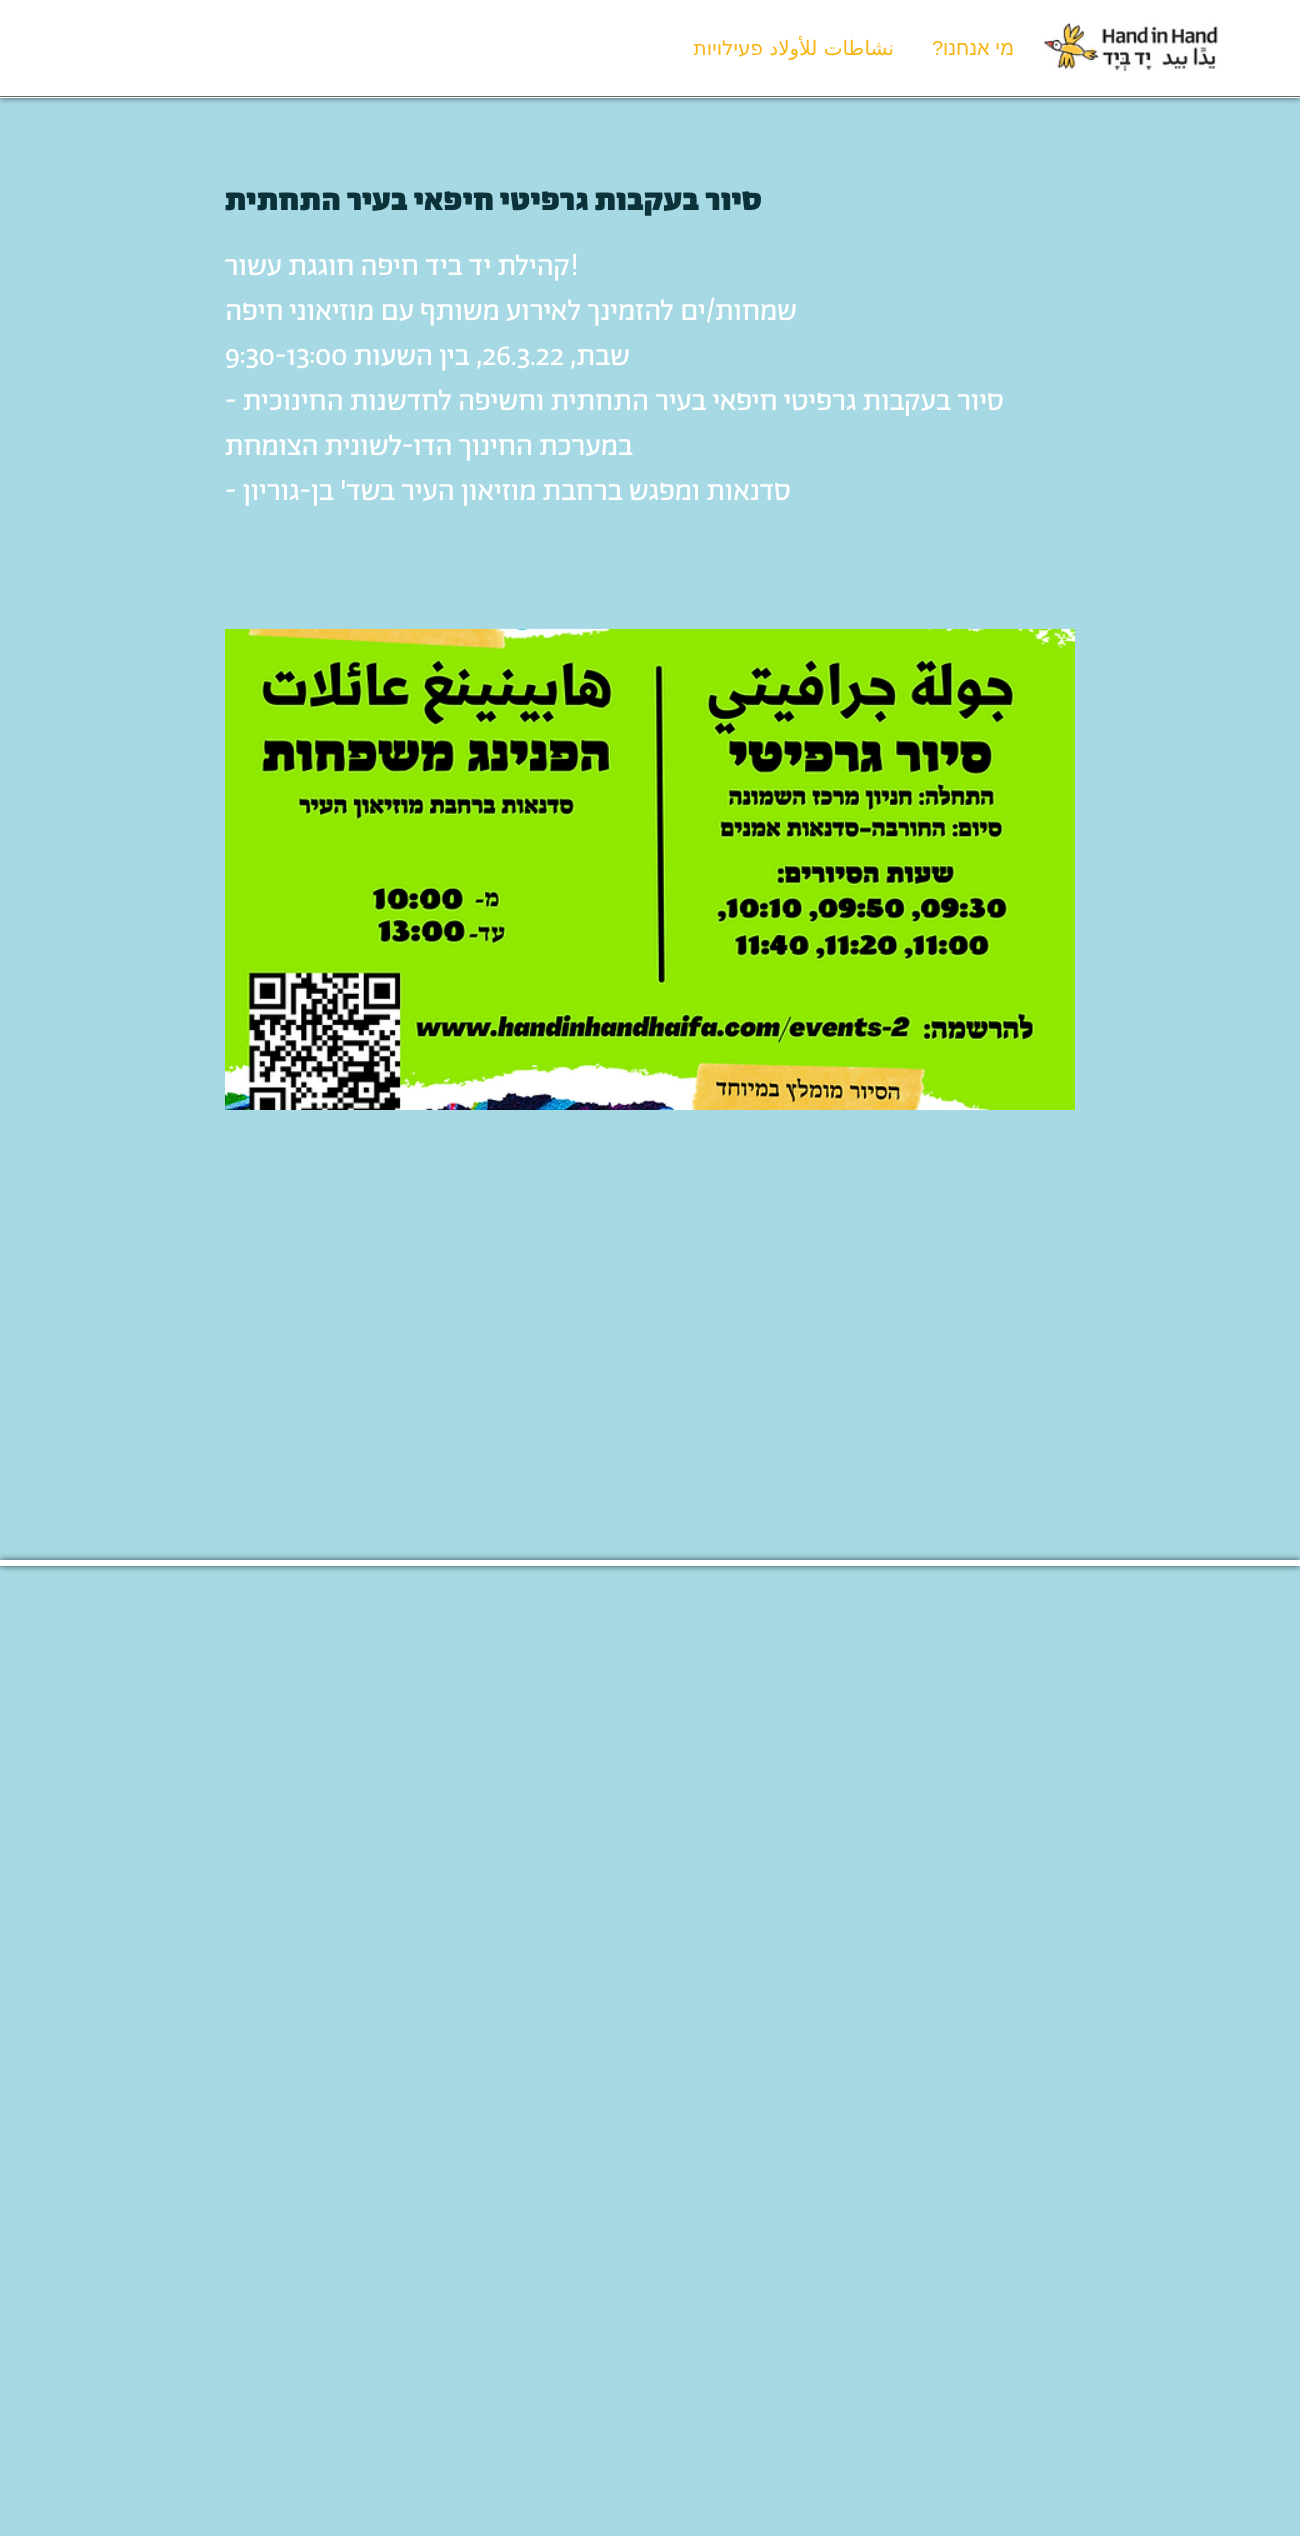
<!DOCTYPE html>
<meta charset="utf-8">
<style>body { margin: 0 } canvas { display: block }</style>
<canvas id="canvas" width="1300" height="2536"></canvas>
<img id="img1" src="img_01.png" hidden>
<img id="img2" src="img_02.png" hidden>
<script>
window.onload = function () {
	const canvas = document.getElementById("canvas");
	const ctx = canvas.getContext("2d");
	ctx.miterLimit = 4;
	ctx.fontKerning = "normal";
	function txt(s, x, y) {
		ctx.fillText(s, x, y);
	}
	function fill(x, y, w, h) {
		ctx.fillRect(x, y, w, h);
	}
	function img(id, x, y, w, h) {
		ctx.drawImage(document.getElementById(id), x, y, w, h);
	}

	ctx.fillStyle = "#A6D9E3";
	fill(0, 0, 1300, 2536);
	ctx.fillStyle = "rgba(0, 0, 0, 0.6)";
	ctx.filter = "blur(3px)";
	ctx.beginPath();
	ctx.rect(0, 0, 1300, 98);
	ctx.fill();
	ctx.filter = "none";
	ctx.fillStyle = "#FFFFFF";
	fill(0, 0, 1300, 98);
	ctx.fillStyle = "#666666";
	fill(0, 96, 1300, 1);
	img("img1", 1043, 22, 175, 50);
	img("img2", 225, 628, 850, 482);
	ctx.fillStyle = "rgba(0, 0, 0, 0.7)";
	ctx.filter = "blur(3px)";
	ctx.beginPath();
	ctx.rect(0, 1560, 1300, 6);
	ctx.fill();
	ctx.filter = "none";
	ctx.fillStyle = "#FFFFFF";
	fill(0, 1560, 1300, 6);
	ctx.direction = "rtl";
	ctx.font = "20px Liberation Sans";
	ctx.fillStyle = "#F7B519";
	txt("מי אנחנו?", 1014, 55);
	ctx.font = "20px DejaVu Sans";
	txt("نشاطات للأولاد פעילויות", 894, 55);
	ctx.font = "900 32.5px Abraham";
	ctx.fillStyle = "#0B3139";
	txt("סיור בעקבות גרפיטי חיפאי בעיר התחתית", 762, 210);
	ctx.direction = "ltr";
	ctx.font = "30px Abraham";
	ctx.fillStyle = "#FFFFFF";
	txt("!", 570, 275);
	ctx.direction = "rtl";
	txt("קהילת יד ביד חיפה חוגגת עשור", 570, 275);
	txt("שמחות/ים להזמינך לאירוע משותף עם מוזיאוני חיפה", 797, 320);
	txt("שבת,", 630, 365);
	ctx.direction = "ltr";
	txt("26.3.22", 482, 365);
	ctx.direction = "rtl";
	txt(", בין השעות", 482, 365);
	ctx.direction = "ltr";
	txt("9:30-13:00", 225, 365);
	ctx.direction = "rtl";
	txt("סיור בעקבות גרפיטי חיפאי בעיר התחתית וחשיפה לחדשנות החינוכית", 1004, 410);
	ctx.direction = "ltr";
	txt("-", 225, 410);
	ctx.direction = "rtl";
	txt("במערכת החינוך הדו-לשונית הצומחת", 633, 455);
	txt("סדנאות ומפגש ברחבת מוזיאון העיר בשד' בן-גוריון", 791, 500);
	ctx.direction = "ltr";
	txt("-", 225, 500);
};
</script>
